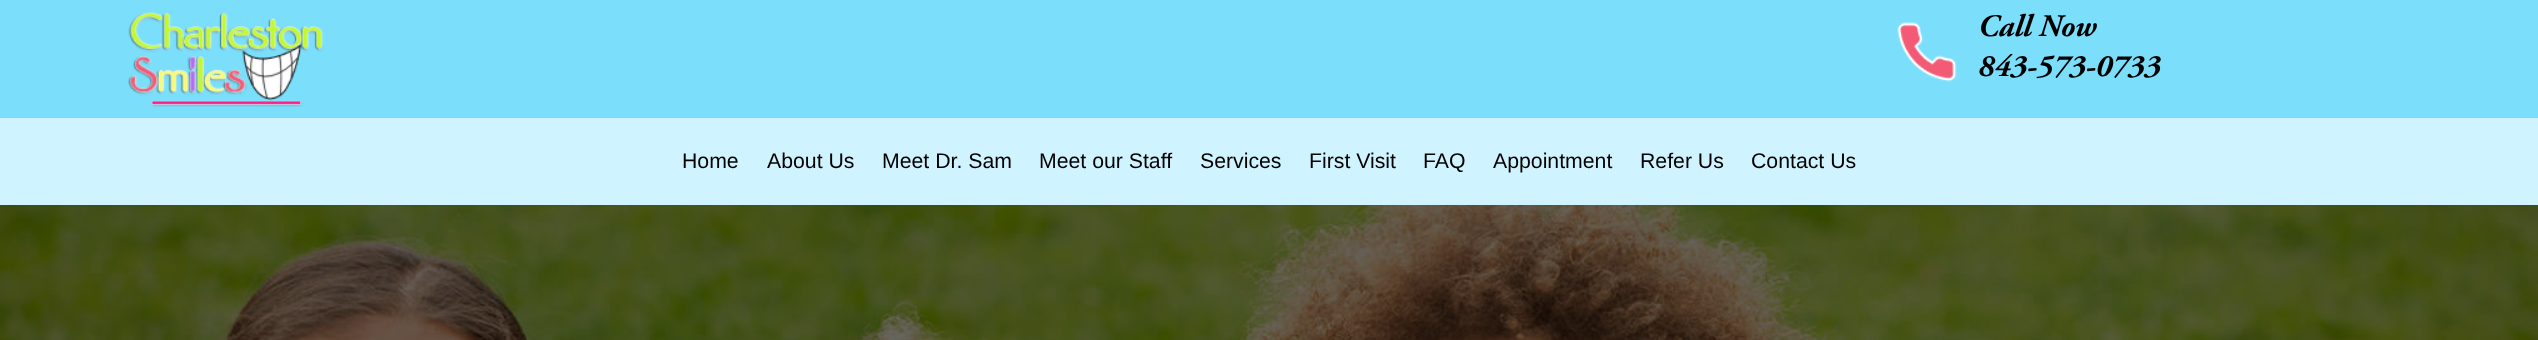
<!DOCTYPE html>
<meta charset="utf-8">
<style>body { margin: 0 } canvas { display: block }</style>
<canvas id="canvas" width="2538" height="340"></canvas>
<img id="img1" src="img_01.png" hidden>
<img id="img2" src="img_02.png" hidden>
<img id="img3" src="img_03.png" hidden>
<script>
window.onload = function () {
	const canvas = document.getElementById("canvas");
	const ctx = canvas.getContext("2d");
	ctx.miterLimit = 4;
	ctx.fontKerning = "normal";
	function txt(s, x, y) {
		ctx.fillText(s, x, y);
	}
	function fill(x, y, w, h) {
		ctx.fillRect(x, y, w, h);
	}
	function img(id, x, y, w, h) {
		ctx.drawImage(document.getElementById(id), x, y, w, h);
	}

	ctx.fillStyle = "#7BDFFC";
	fill(0, 0, 2538, 340);
	img("img1", 128, 12, 196, 95);
	img("img2", 1897, 22, 60, 60);
	ctx.fillStyle = "#D0F4FF";
	fill(0, 118, 2538, 87);
	img("img3", 0, 205, 2538, 135);
	ctx.font = "italic bold 31.25px Adobe Garamond";
	ctx.fillStyle = "#000000";
	txt("Call Now", 1978, 36);
	txt("843-573-0733", 1978, 76);
	ctx.font = "21.25px Liberation Sans";
	txt("Home", 682, 168);
	txt("About Us", 767, 168);
	txt("Meet Dr. Sam", 882, 168);
	txt("Meet our Staff", 1039, 168);
	txt("Services", 1200, 168);
	txt("First Visit", 1309, 168);
	txt("FAQ", 1423, 168);
	txt("Appointment", 1493, 168);
	txt("Refer Us", 1640, 168);
	txt("Contact Us", 1751, 168);
};
</script>
